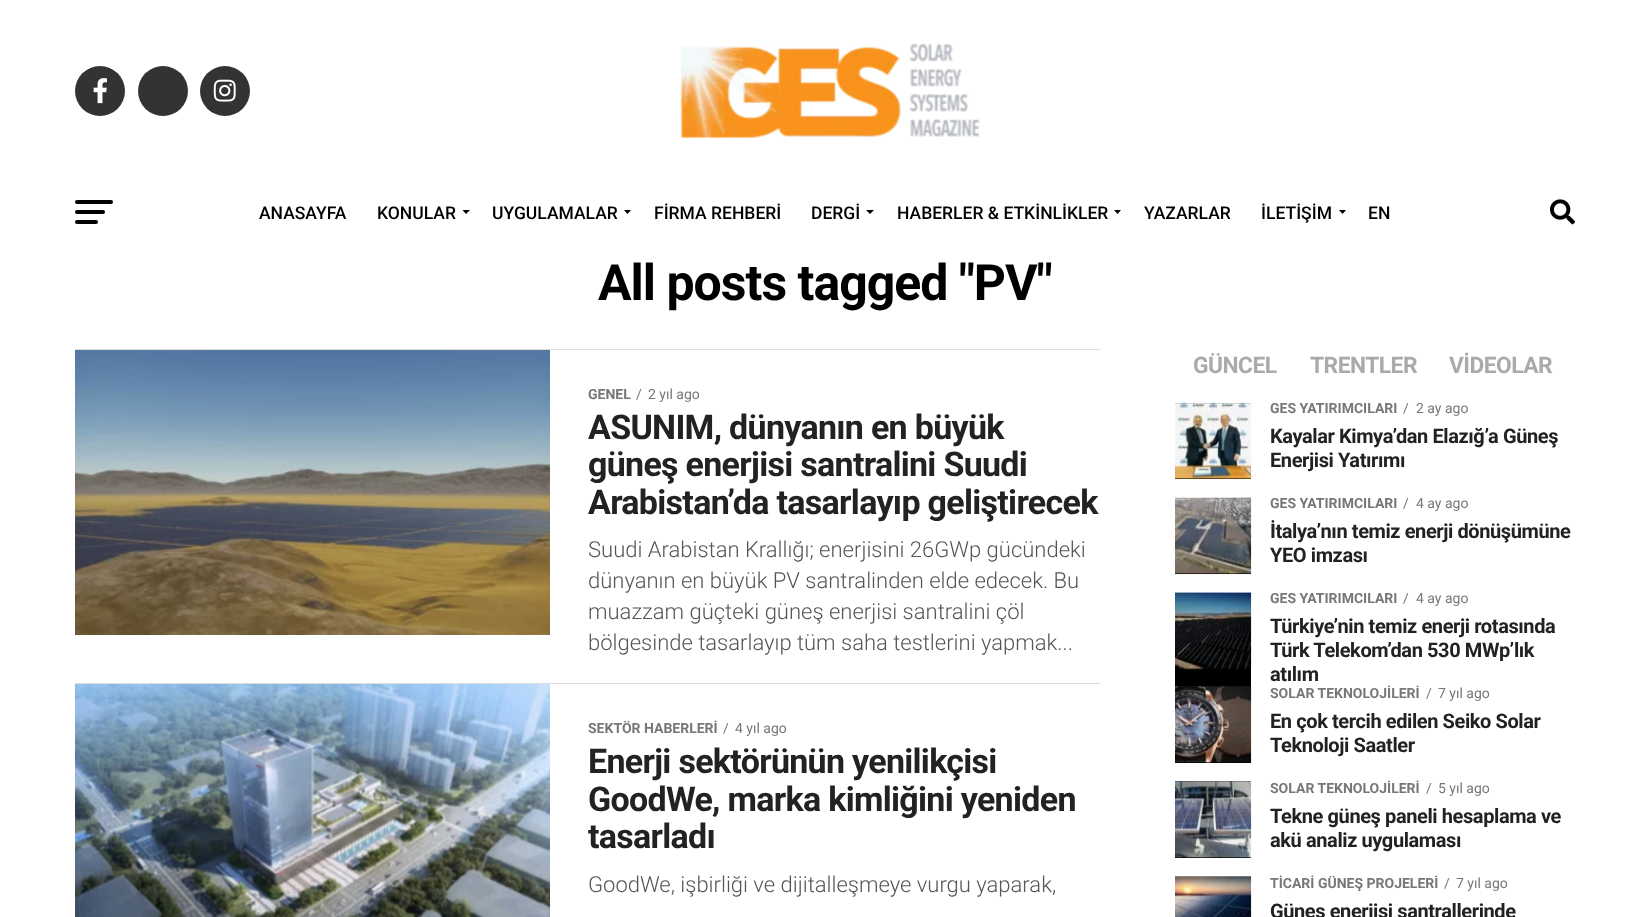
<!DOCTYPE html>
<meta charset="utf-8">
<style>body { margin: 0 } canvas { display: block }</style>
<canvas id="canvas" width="1650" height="917"></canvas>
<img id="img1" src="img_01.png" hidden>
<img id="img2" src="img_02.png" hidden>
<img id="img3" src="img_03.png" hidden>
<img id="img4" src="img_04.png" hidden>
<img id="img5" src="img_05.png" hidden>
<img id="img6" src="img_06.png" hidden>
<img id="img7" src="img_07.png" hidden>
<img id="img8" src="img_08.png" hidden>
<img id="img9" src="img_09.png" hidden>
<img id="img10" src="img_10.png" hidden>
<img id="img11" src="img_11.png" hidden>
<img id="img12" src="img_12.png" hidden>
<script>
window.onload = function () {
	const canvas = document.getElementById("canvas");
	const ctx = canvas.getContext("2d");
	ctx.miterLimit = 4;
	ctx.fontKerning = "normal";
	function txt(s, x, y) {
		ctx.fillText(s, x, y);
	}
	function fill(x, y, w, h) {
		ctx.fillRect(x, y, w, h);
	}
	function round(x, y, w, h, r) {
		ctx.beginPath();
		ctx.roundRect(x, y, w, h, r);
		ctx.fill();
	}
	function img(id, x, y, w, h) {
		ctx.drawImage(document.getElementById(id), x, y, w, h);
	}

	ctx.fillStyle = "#FFFFFF";
	fill(0, 0, 1650, 917);
	ctx.fillStyle = "#333333";
	ctx.beginPath();
	ctx.arc(100, 91, 25, 0, Math.PI * 2);
	ctx.fill();
	img("img1", 93, 78, 14, 26);
	ctx.beginPath();
	ctx.arc(163, 91, 25, 0, Math.PI * 2);
	ctx.fill();
	ctx.beginPath();
	ctx.arc(225, 91, 25, 0, Math.PI * 2);
	ctx.fill();
	img("img2", 213, 79, 23, 23);
	img("img3", 680, 43, 300, 95);
	ctx.fillStyle = "#000000";
	round(75, 200, 38, 4, 2);
	round(75, 210, 30, 4, 2);
	round(75, 220, 23, 4, 2);
	ctx.beginPath();
	ctx.moveTo(462.5, 210);
	ctx.lineTo(470, 210);
	ctx.lineTo(466, 214);
	ctx.closePath();
	ctx.fill();
	ctx.beginPath();
	ctx.moveTo(624, 210);
	ctx.lineTo(631, 210);
	ctx.lineTo(627.5, 214);
	ctx.closePath();
	ctx.fill();
	ctx.beginPath();
	ctx.moveTo(866, 210);
	ctx.lineTo(874, 210);
	ctx.lineTo(870, 214);
	ctx.closePath();
	ctx.fill();
	ctx.beginPath();
	ctx.moveTo(1114, 210);
	ctx.lineTo(1121, 210);
	ctx.lineTo(1117.5, 214);
	ctx.closePath();
	ctx.fill();
	ctx.beginPath();
	ctx.moveTo(1339, 210);
	ctx.lineTo(1346, 210);
	ctx.lineTo(1342.5, 214);
	ctx.closePath();
	ctx.fill();
	img("img4", 1550, 199, 25, 26);
	ctx.fillStyle = "#DDDDDD";
	fill(75, 349, 1025, 1);
	img("img5", 75, 350, 475, 285);
	fill(75, 683, 1025, 1);
	img("img6", 75, 684, 475, 233);
	ctx.fillStyle = "#000000";
	fill(1175, 403, 76, 76);
	img("img7", 1175, 402, 77, 78);
	fill(1175, 498, 76, 76);
	img("img8", 1175, 497, 77, 78);
	fill(1175, 593, 76, 170);
	img("img9", 1175, 592, 77, 78);
	img("img10", 1175, 686, 77, 77);
	fill(1175, 781, 76, 77);
	img("img11", 1175, 781, 77, 77);
	img("img12", 1175, 876, 77, 41);
	ctx.font = "500 17.5px Roboto";
	txt("ANASAYFA", 259, 219);
	txt("KONULAR", 377, 219);
	txt("UYGULAMALAR", 492, 219);
	txt("FİRMA REHBERİ", 654, 219);
	txt("DERGİ", 811, 219);
	txt("HABERLER & ETKİNLİKLER", 897, 219);
	txt("YAZARLAR", 1144, 219);
	txt("İLETİŞİM", 1261, 219);
	txt("EN", 1368, 219);
	ctx.letterSpacing = "-1px";
	ctx.font = "bold 50px Roboto";
	txt("All posts tagged \"PV\"", 598, 300);
	ctx.letterSpacing = "0px";
	ctx.font = "bold 14px Roboto";
	ctx.fillStyle = "#777777";
	txt("GENEL", 588, 399);
	ctx.font = "14px Roboto";
	txt("/", 636, 399);
	txt("2 yıl ago", 648, 399);
	ctx.letterSpacing = "-0.7px";
	ctx.font = "bold 34px Roboto";
	ctx.fillStyle = "#222222";
	txt("ASUNIM, dünyanın en büyük", 588, 439);
	txt("güneş enerjisi santralini Suudi", 588, 476);
	txt("Arabistan’da tasarlayıp geliştirecek", 588, 514);
	ctx.letterSpacing = "0px";
	ctx.font = "300 22px Roboto";
	ctx.fillStyle = "#555555";
	txt("Suudi Arabistan Krallığı; enerjisini 26GWp gücündeki", 588, 557);
	txt("dünyanın en büyük PV santralinden elde edecek. Bu", 588, 588);
	txt("muazzam güçteki güneş enerjisi santralini çöl", 588, 619);
	txt("bölgesinde tasarlayıp tüm saha testlerini yapmak...", 588, 650);
	ctx.font = "bold 14px Roboto";
	ctx.fillStyle = "#777777";
	txt("SEKTÖR HABERLERİ", 588, 733);
	ctx.font = "14px Roboto";
	txt("/", 723, 733);
	txt("4 yıl ago", 735, 733);
	ctx.letterSpacing = "-0.7px";
	ctx.font = "bold 34px Roboto";
	ctx.fillStyle = "#222222";
	txt("Enerji sektörünün yenilikçisi", 588, 773);
	txt("GoodWe, marka kimliğini yeniden", 588, 811);
	txt("tasarladı", 588, 848);
	ctx.letterSpacing = "0px";
	ctx.font = "300 22px Roboto";
	ctx.fillStyle = "#555555";
	txt("GoodWe, işbirliği ve dijitalleşmeye vurgu yaparak,", 588, 892);
	ctx.letterSpacing = "-0.5px";
	ctx.font = "bold 22.75px Roboto";
	ctx.fillStyle = "#AAAAAA";
	txt("GÜNCEL", 1193, 373);
	txt("TRENTLER", 1310, 373);
	txt("VİDEOLAR", 1449, 373);
	ctx.letterSpacing = "0px";
	ctx.font = "bold 14px Roboto";
	ctx.fillStyle = "#777777";
	txt("GES YATIRIMCILARI", 1270, 413);
	ctx.font = "14px Roboto";
	txt("/", 1403, 413);
	txt("2 ay ago", 1416, 413);
	ctx.letterSpacing = "-0.4px";
	ctx.font = "bold 20px Roboto";
	ctx.fillStyle = "#222222";
	txt("Kayalar Kimya’dan Elazığ’a Güneş", 1270, 443);
	txt("Enerjisi Yatırımı", 1270, 467);
	ctx.letterSpacing = "0px";
	ctx.font = "bold 14px Roboto";
	ctx.fillStyle = "#777777";
	txt("GES YATIRIMCILARI", 1270, 508);
	ctx.font = "14px Roboto";
	txt("/", 1403, 508);
	txt("4 ay ago", 1416, 508);
	ctx.letterSpacing = "-0.4px";
	ctx.font = "bold 20px Roboto";
	ctx.fillStyle = "#222222";
	txt("İtalya’nın temiz enerji dönüşümüne", 1270, 538);
	txt("YEO imzası", 1270, 562);
	ctx.letterSpacing = "0px";
	ctx.font = "bold 14px Roboto";
	ctx.fillStyle = "#777777";
	txt("GES YATIRIMCILARI", 1270, 603);
	ctx.font = "14px Roboto";
	txt("/", 1403, 603);
	txt("4 ay ago", 1416, 603);
	ctx.letterSpacing = "-0.4px";
	ctx.font = "bold 20px Roboto";
	ctx.fillStyle = "#222222";
	txt("Türkiye’nin temiz enerji rotasında", 1270, 633);
	txt("Türk Telekom’dan 530 MWp’lık", 1270, 657);
	txt("atılım", 1270, 681);
	ctx.letterSpacing = "0px";
	ctx.font = "bold 14px Roboto";
	ctx.fillStyle = "#777777";
	txt("SOLAR TEKNOLOJİLERİ", 1270, 698);
	ctx.font = "14px Roboto";
	txt("/", 1426, 698);
	txt("7 yıl ago", 1438, 698);
	ctx.letterSpacing = "-0.4px";
	ctx.font = "bold 20px Roboto";
	ctx.fillStyle = "#222222";
	txt("En çok tercih edilen Seiko Solar", 1270, 728);
	txt("Teknoloji Saatler", 1270, 752);
	ctx.letterSpacing = "0px";
	ctx.font = "bold 14px Roboto";
	ctx.fillStyle = "#777777";
	txt("SOLAR TEKNOLOJİLERİ", 1270, 793);
	ctx.font = "14px Roboto";
	txt("/", 1426, 793);
	txt("5 yıl ago", 1438, 793);
	ctx.letterSpacing = "-0.4px";
	ctx.font = "bold 20px Roboto";
	ctx.fillStyle = "#222222";
	txt("Tekne güneş paneli hesaplama ve", 1270, 823);
	txt("akü analiz uygulaması", 1270, 847);
	ctx.letterSpacing = "0px";
	ctx.font = "bold 14px Roboto";
	ctx.fillStyle = "#777777";
	txt("TİCARİ GÜNEŞ PROJELERİ", 1270, 888);
	ctx.font = "14px Roboto";
	txt("/", 1444, 888);
	txt("7 yıl ago", 1456, 888);
	ctx.letterSpacing = "-0.4px";
	ctx.font = "bold 20px Roboto";
	ctx.fillStyle = "#222222";
	txt("Güneş enerjisi santrallerinde", 1270, 918);
};
</script>
